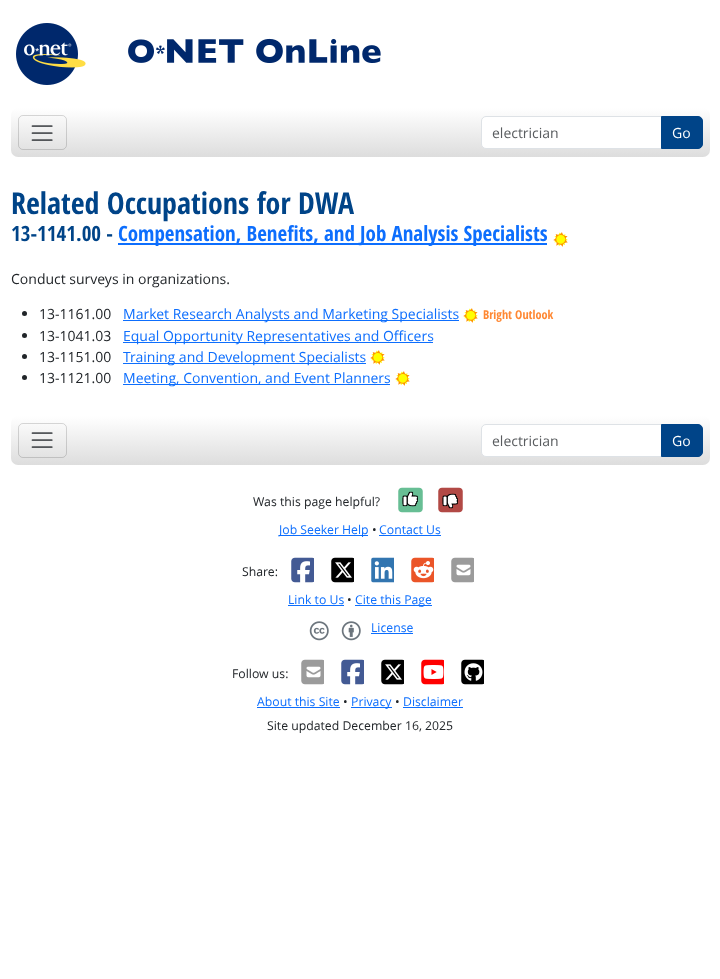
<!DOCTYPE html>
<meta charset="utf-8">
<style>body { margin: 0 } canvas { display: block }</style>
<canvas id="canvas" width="720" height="979"></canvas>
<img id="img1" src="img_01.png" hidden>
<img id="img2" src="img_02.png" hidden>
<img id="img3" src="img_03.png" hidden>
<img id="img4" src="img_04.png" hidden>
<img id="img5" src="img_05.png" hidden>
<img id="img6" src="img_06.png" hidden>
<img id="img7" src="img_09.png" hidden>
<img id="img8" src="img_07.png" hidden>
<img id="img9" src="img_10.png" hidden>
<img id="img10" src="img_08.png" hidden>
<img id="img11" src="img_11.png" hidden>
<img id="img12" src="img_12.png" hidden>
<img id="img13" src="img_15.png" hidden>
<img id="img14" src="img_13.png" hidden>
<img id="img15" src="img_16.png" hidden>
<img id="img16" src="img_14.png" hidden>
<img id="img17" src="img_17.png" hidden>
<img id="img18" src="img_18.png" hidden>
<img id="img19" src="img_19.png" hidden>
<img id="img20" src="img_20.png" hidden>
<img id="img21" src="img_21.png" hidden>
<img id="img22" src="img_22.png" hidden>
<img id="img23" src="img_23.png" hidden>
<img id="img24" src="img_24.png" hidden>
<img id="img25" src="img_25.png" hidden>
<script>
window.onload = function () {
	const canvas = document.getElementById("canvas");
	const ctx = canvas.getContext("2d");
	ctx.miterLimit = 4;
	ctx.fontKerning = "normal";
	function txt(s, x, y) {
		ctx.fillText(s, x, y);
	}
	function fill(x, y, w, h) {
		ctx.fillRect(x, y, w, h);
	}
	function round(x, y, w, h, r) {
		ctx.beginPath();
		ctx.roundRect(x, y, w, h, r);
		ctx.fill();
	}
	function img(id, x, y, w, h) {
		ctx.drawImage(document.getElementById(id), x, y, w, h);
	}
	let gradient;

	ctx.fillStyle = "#FFFFFF";
	fill(0, 0, 720, 979);
	img("img1", 16, 23, 365, 62);
	gradient = ctx.createLinearGradient(361, 108, 361, 157);
	gradient.addColorStop(0, "#FFFFFF");
	gradient.addColorStop(1, "#DDDDDD");
	ctx.fillStyle = gradient;
	round(11, 108, 699, 49, 7);
	ctx.beginPath();
	ctx.roundRect(18.5, 115.5, 48, 34, 4.5);
	ctx.strokeStyle = "rgba(0, 0, 0, 0.15)";
	ctx.stroke();
	img("img2", 31, 125, 22, 16);
	ctx.fillStyle = "#FFFFFF";
	ctx.beginPath();
	ctx.roundRect(481.5, 116.5, 180, 32, [4.5, 0, 0, 4.5]);
	ctx.fill();
	ctx.strokeStyle = "#DEE2E6";
	ctx.stroke();
	ctx.fillStyle = "#004488";
	ctx.beginPath();
	ctx.roundRect(661.5, 116.5, 41, 32, [0, 4.5, 4.5, 0]);
	ctx.fill();
	ctx.strokeStyle = "#004488";
	ctx.stroke();
	ctx.fillStyle = "#0D6EFD";
	fill(118, 243, 429, 2);
	img("img3", 553, 232, 15, 15);
	ctx.fillStyle = "#212529";
	ctx.beginPath();
	ctx.arc(24.5, 313.5, 2.5, 0, Math.PI * 2);
	ctx.fill();
	ctx.fillStyle = "#0D6EFD";
	fill(123, 320, 336, 1);
	img("img3", 463, 308, 15, 15);
	ctx.fillStyle = "#212529";
	ctx.beginPath();
	ctx.arc(24.5, 335.5, 2.5, 0, Math.PI * 2);
	ctx.fill();
	ctx.fillStyle = "#0D6EFD";
	fill(123, 342, 310, 1);
	ctx.fillStyle = "#212529";
	ctx.beginPath();
	ctx.arc(24.5, 356.5, 2.5, 0, Math.PI * 2);
	ctx.fill();
	ctx.fillStyle = "#0D6EFD";
	fill(123, 363, 243, 1);
	img("img3", 370, 350, 15, 15);
	ctx.fillStyle = "#212529";
	ctx.beginPath();
	ctx.arc(24.5, 377.5, 2.5, 0, Math.PI * 2);
	ctx.fill();
	ctx.fillStyle = "#0D6EFD";
	fill(123, 384, 267, 1);
	img("img3", 395, 371, 15, 15);
	gradient = ctx.createLinearGradient(361, 416, 361, 465);
	gradient.addColorStop(0, "#FFFFFF");
	gradient.addColorStop(1, "#DDDDDD");
	ctx.fillStyle = gradient;
	round(11, 416, 699, 49, 7);
	ctx.beginPath();
	ctx.roundRect(18.5, 423.5, 48, 34, 4.5);
	ctx.strokeStyle = "rgba(0, 0, 0, 0.15)";
	ctx.stroke();
	img("img4", 31, 432, 22, 16);
	ctx.fillStyle = "#FFFFFF";
	ctx.beginPath();
	ctx.roundRect(481.5, 424.5, 180, 32, [4.5, 0, 0, 4.5]);
	ctx.fill();
	ctx.strokeStyle = "#DEE2E6";
	ctx.stroke();
	ctx.fillStyle = "#004488";
	ctx.beginPath();
	ctx.roundRect(661.5, 424.5, 41, 32, [0, 4.5, 4.5, 0]);
	ctx.fill();
	ctx.strokeStyle = "#004488";
	ctx.stroke();
	img("img5", 398, 487, 25, 26);
	img("img6", 402, 491, 14, 13);
	img("img7", 405, 493, 13, 14);
	img("img8", 404, 491, 14, 13);
	img("img9", 402, 497, 12, 10);
	img("img10", 403, 492, 14, 14);
	img("img11", 438, 487, 25, 26);
	img("img12", 442, 493, 12, 11);
	img("img13", 445, 496, 13, 13);
	img("img14", 444, 493, 14, 13);
	img("img15", 442, 497, 14, 12);
	img("img16", 443, 494, 14, 14);
	ctx.fillStyle = "#0D6EFD";
	fill(279, 535, 89, 1);
	fill(379, 535, 62, 1);
	img("img17", 291, 557, 23, 26);
	img("img18", 331, 557, 23, 26);
	img("img19", 371, 557, 23, 26);
	img("img20", 411, 557, 23, 26);
	img("img21", 451, 557, 23, 26);
	fill(288, 605, 56, 1);
	fill(355, 605, 77, 1);
	img("img22", 309, 621, 20, 20);
	img("img23", 341, 621, 20, 20);
	fill(371, 633, 42, 1);
	img("img21", 301, 659, 23, 26);
	img("img17", 341, 659, 23, 26);
	img("img18", 381, 659, 23, 26);
	img("img24", 421, 659, 23, 26);
	img("img25", 461, 659, 23, 26);
	fill(257, 707, 83, 1);
	fill(351, 707, 41, 1);
	fill(403, 707, 60, 1);
	ctx.font = "14px Open Sans";
	ctx.fillStyle = "#595C5F";
	txt("electrician", 492, 138);
	ctx.fillStyle = "#FFFFFF";
	txt("Go", 672, 138);
	ctx.font = "bold 30px Open Sans Condensed";
	ctx.fillStyle = "#004488";
	txt("Related Occupations for DWA", 11, 214);
	ctx.font = "bold 21px Open Sans Condensed";
	txt("13-1141.00 -", 11, 241);
	ctx.fillStyle = "#0D6EFD";
	txt("Compensation, Benefits, and Job Analysis Specialists", 118, 241);
	ctx.font = "14px Open Sans";
	ctx.fillStyle = "#212529";
	txt("Conduct surveys in organizations.", 11, 284);
	txt("13-1161.00", 39, 319);
	ctx.fillStyle = "#0D6EFD";
	txt("Market Research Analysts and Marketing Specialists", 123, 319);
	ctx.font = "bold 12.25px Open Sans Condensed";
	ctx.fillStyle = "#FF8833";
	txt("Bright Outlook", 483, 319);
	ctx.font = "14px Open Sans";
	ctx.fillStyle = "#212529";
	txt("13-1041.03", 39, 341);
	ctx.fillStyle = "#0D6EFD";
	txt("Equal Opportunity Representatives and Officers", 123, 341);
	ctx.fillStyle = "#212529";
	txt("13-1151.00", 39, 362);
	ctx.fillStyle = "#0D6EFD";
	txt("Training and Development Specialists", 123, 362);
	ctx.fillStyle = "#212529";
	txt("13-1121.00", 39, 383);
	ctx.fillStyle = "#0D6EFD";
	txt("Meeting, Convention, and Event Planners", 123, 383);
	ctx.fillStyle = "#595C5F";
	txt("electrician", 492, 446);
	ctx.fillStyle = "#FFFFFF";
	txt("Go", 672, 446);
	ctx.font = "12.25px Open Sans";
	ctx.fillStyle = "#212529";
	txt("Was this page helpful?", 253, 506);
	ctx.fillStyle = "#0D6EFD";
	txt("Job Seeker Help", 279, 534);
	ctx.fillStyle = "#212529";
	txt("•", 372, 534);
	ctx.fillStyle = "#0D6EFD";
	txt("Contact Us", 379, 534);
	ctx.fillStyle = "#212529";
	txt("Share:", 242, 576);
	ctx.fillStyle = "#0D6EFD";
	txt("Link to Us", 288, 604);
	ctx.fillStyle = "#212529";
	txt("•", 347, 604);
	ctx.fillStyle = "#0D6EFD";
	txt("Cite this Page", 355, 604);
	txt("License", 371, 632);
	ctx.fillStyle = "#212529";
	txt("Follow us:", 232, 678);
	ctx.fillStyle = "#0D6EFD";
	txt("About this Site", 257, 706);
	ctx.fillStyle = "#212529";
	txt("•", 343, 706);
	ctx.fillStyle = "#0D6EFD";
	txt("Privacy", 351, 706);
	ctx.fillStyle = "#212529";
	txt("•", 395, 706);
	ctx.fillStyle = "#0D6EFD";
	txt("Disclaimer", 403, 706);
	ctx.fillStyle = "#212529";
	txt("Site updated December 16, 2025", 267, 730);
};
</script>
